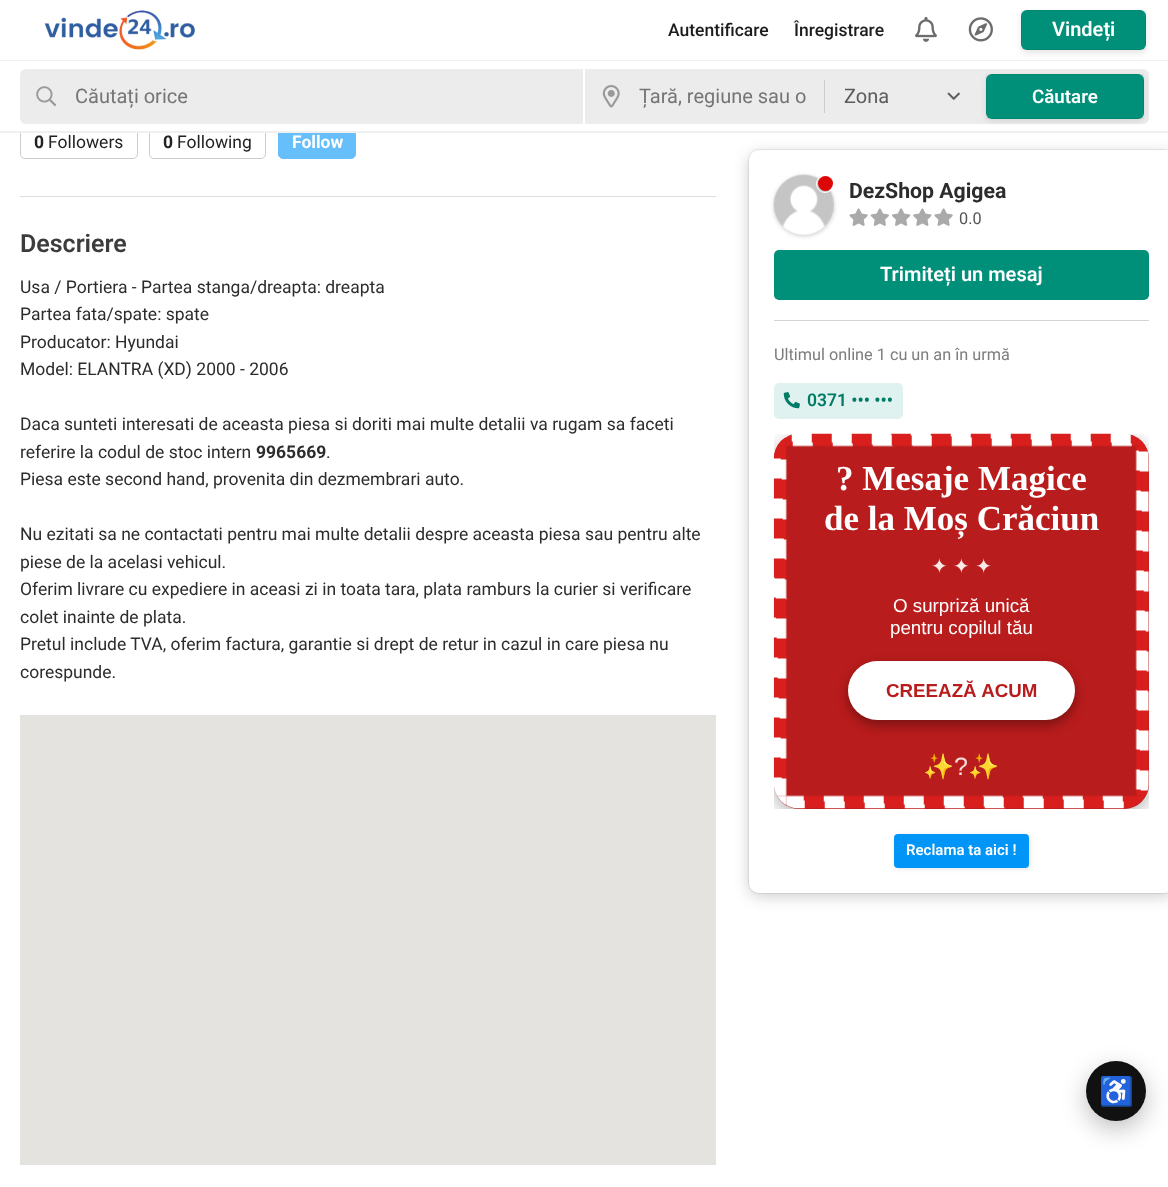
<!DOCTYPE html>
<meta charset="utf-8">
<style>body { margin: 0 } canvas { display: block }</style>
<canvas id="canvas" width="1168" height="1187"></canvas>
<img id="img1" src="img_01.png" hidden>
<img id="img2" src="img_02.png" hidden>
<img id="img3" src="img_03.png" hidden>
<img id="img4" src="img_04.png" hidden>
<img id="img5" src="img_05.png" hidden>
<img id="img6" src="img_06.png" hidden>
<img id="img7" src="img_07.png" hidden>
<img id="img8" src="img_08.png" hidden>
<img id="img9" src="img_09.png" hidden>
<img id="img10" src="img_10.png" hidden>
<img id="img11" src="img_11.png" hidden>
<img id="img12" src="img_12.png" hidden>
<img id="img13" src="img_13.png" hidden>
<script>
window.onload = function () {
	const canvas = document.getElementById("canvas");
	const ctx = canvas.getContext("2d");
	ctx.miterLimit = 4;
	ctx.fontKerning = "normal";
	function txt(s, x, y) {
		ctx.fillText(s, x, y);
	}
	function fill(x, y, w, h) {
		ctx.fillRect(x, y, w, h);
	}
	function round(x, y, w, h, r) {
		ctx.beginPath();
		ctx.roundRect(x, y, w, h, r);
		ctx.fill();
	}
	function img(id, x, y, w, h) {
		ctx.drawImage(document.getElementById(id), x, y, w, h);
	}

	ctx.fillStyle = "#FFFFFF";
	fill(0, 0, 1168, 1187);
	ctx.fillStyle = "#F0F0F0";
	ctx.beginPath();
	ctx.moveTo(0, 60);
	ctx.lineTo(0, 61);
	ctx.lineTo(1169, 61);
	ctx.lineTo(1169, 1);
	ctx.lineTo(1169, 60);
	ctx.closePath();
	ctx.fill();
	img("img1", 44, 10, 151, 40);
	img("img2", 915, 16, 22, 26);
	img("img3", 968, 17, 25, 25);
	ctx.fillStyle = "rgba(0, 0, 0, 0.1)";
	ctx.filter = "blur(3px)";
	ctx.beginPath();
	ctx.roundRect(1021, 13, 125, 40, 6);
	ctx.fill();
	ctx.filter = "none";
	ctx.fillStyle = "#008F79";
	round(1021, 10, 125, 40, 6);
	ctx.strokeStyle = "rgba(0, 0, 0, 0.05)";
	ctx.strokeRect(1021.5, 10.5, 124, 39);
	ctx.beginPath();
	ctx.roundRect(20.5, 121.5, 117, 37, 4.5);
	ctx.strokeStyle = "#CCCCCC";
	ctx.stroke();
	ctx.beginPath();
	ctx.roundRect(149.5, 121.5, 116, 37, 4.5);
	ctx.stroke();
	ctx.fillStyle = "#66BFFA";
	ctx.beginPath();
	ctx.roundRect(278.5, 121.5, 77, 37, 4.5);
	ctx.fill();
	ctx.strokeStyle = "#66BFFA";
	ctx.stroke();
	ctx.beginPath();
	ctx.roundRect(748.5, 149.5, 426, 744, 10.5);
	ctx.strokeStyle = "#EDEDED";
	ctx.stroke();
	ctx.fillStyle = "rgba(0, 0, 0, 0.2)";
	ctx.filter = "blur(7.5px)";
	ctx.beginPath();
	ctx.roundRect(749, 154, 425, 742, 10);
	ctx.fill();
	ctx.filter = "none";
	ctx.fillStyle = "#F0F0F0";
	ctx.beginPath();
	ctx.moveTo(0, 131);
	ctx.lineTo(0, 133);
	ctx.lineTo(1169, 133);
	ctx.lineTo(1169, 63);
	ctx.lineTo(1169, 131);
	ctx.closePath();
	ctx.fill();
	ctx.fillStyle = "#FFFFFF";
	fill(20, 121, 336, 10);
	ctx.fillStyle = "#ECECEC";
	ctx.beginPath();
	ctx.roundRect(20, 69, 563, 55, [6, 0, 0, 6]);
	ctx.fill();
	img("img4", 36, 86, 21, 21);
	fill(585, 69, 389, 55);
	img("img5", 602, 85, 18, 23);
	ctx.fillStyle = "#CCCCCC";
	fill(824, 80, 1, 33);
	img("img6", 947, 92, 13, 8);
	ctx.fillStyle = "#ECECEC";
	ctx.beginPath();
	ctx.roundRect(974, 69, 175, 55, [0, 6, 6, 0]);
	ctx.fill();
	ctx.fillStyle = "rgba(0, 0, 0, 0.1)";
	ctx.filter = "blur(3px)";
	ctx.beginPath();
	ctx.roundRect(986, 76, 158, 45, 6);
	ctx.fill();
	ctx.filter = "none";
	ctx.fillStyle = "#008F79";
	round(986, 74, 158, 45, 6);
	ctx.strokeStyle = "rgba(0, 0, 0, 0.05)";
	ctx.strokeRect(986.5, 74.5, 157, 44);
	ctx.fillStyle = "#DDDDDD";
	fill(20, 196, 696, 1);
	ctx.fillStyle = "#E5E3DF";
	fill(20, 715, 696, 450);
	ctx.fillStyle = "#FFFFFF";
	round(749, 150, 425, 743, 10);
	ctx.fillStyle = "rgba(0, 0, 0, 0.2)";
	ctx.filter = "blur(2px)";
	ctx.beginPath();
	ctx.roundRect(774, 176, 60, 60, 30);
	ctx.fill();
	ctx.filter = "none";
	img("img7", 773, 174, 61, 61);
	ctx.beginPath();
	ctx.arc(825, 184, 8.5, 0, Math.PI * 2);
	ctx.strokeStyle = "#FFFFFF";
	ctx.stroke();
	ctx.fillStyle = "#DC0606";
	ctx.beginPath();
	ctx.arc(825.5, 183.5, 7.5, 0, Math.PI * 2);
	ctx.fill();
	img("img8", 849, 208, 19, 18);
	img("img9", 870, 208, 19, 18);
	img("img10", 892, 208, 19, 18);
	img("img11", 913, 208, 19, 18);
	img("img8", 934, 208, 19, 18);
	ctx.fillStyle = "#D4D4D4";
	fill(774, 320, 375, 1);
	ctx.fillStyle = "#008F79";
	round(774, 250, 375, 50, 5);
	ctx.fillStyle = "#E0F2EF";
	round(774, 383, 129, 36, 5);
	img("img12", 783, 392, 17, 17);
	ctx.fillStyle = "rgba(0, 0, 0, 0.1)";
	ctx.filter = "blur(2.5px)";
	ctx.beginPath();
	ctx.roundRect(895, 835, 135, 34, 4);
	ctx.fill();
	ctx.filter = "none";
	ctx.fillStyle = "#0095F6";
	round(894, 834, 135, 34, 4);
	ctx.save();
	ctx.beginPath();
	ctx.rect(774, 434, 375, 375);
	ctx.clip();
	ctx.fillStyle = "rgba(0, 0, 0, 0.3)";
	ctx.filter = "blur(9px)";
	ctx.beginPath();
	ctx.roundRect(774, 439, 375, 375, 25);
	ctx.fill();
	ctx.filter = "none";
	ctx.restore();
	ctx.fillStyle = "#B91C1C";
	round(774, 434, 375, 375, 25);
	ctx.fillStyle = "rgba(0, 0, 0, 0.35)";
	ctx.filter = "blur(6px)";
	ctx.beginPath();
	ctx.roundRect(848, 666, 227, 59, 29.5);
	ctx.fill();
	ctx.filter = "none";
	ctx.fillStyle = "#FFFFFF";
	round(848, 661, 227, 59, 29.5);
	ctx.fillStyle = "rgba(0, 0, 0, 0.25)";
	ctx.filter = "blur(12.5px)";
	ctx.beginPath();
	ctx.roundRect(1086, 1069, 60, 60, 30);
	ctx.fill();
	ctx.filter = "none";
	ctx.fillStyle = "#111111";
	ctx.beginPath();
	ctx.arc(1116, 1091, 30, 0, Math.PI * 2);
	ctx.fill();
	ctx.font = "500 17.5px Roboto";
	ctx.fillStyle = "#1C1C1C";
	txt("Autentificare", 668, 36);
	txt("Înregistrare", 794, 36);
	ctx.font = "600 20px Roboto";
	ctx.fillStyle = "#FFFFFF";
	txt("Vindeți", 1052, 36);
	ctx.font = "20px Roboto";
	ctx.fillStyle = "#757575";
	txt("Căutați orice", 75, 103);
	txt("Țară, regiune sau o", 639, 103);
	ctx.fillStyle = "#5C5C5C";
	txt("Zona", 844, 103);
	ctx.font = "600 18.75px Roboto";
	ctx.fillStyle = "#FFFFFF";
	txt("Căutare", 1032, 103);
	ctx.font = "bold 17.5px Roboto";
	ctx.fillStyle = "#222222";
	txt("0", 34, 148);
	ctx.font = "17.5px Roboto";
	txt("Followers", 48, 148);
	ctx.font = "bold 17.5px Roboto";
	txt("0", 163, 148);
	ctx.font = "17.5px Roboto";
	txt("Following", 177, 148);
	ctx.font = "bold 17.5px Roboto";
	ctx.fillStyle = "#FFFFFF";
	txt("Follow", 292, 148);
	ctx.font = "600 25px Roboto";
	ctx.fillStyle = "#3C3C3C";
	txt("Descriere", 20, 252);
	ctx.font = "17.5px Roboto";
	ctx.fillStyle = "#2C2C2C";
	txt("Usa / Portiera - Partea stanga/dreapta: dreapta", 20, 293);
	txt("Partea fata/spate: spate", 20, 320);
	txt("Producator: Hyundai", 20, 348);
	txt("Model: ELANTRA (XD) 2000 - 2006", 20, 375);
	txt("Daca sunteti interesati de aceasta piesa si doriti mai multe detalii va rugam sa faceti", 20, 430);
	txt("referire la codul de stoc intern", 20, 458);
	ctx.font = "bold 17.5px Roboto";
	txt("9965669", 256, 458);
	ctx.font = "17.5px Roboto";
	txt(".", 326, 458);
	txt("Piesa este second hand, provenita din dezmembrari auto.", 20, 485);
	txt("Nu ezitati sa ne contactati pentru mai multe detalii despre aceasta piesa sau pentru alte", 20, 540);
	txt("piese de la acelasi vehicul.", 20, 568);
	txt("Oferim livrare cu expediere in aceasi zi in toata tara, plata ramburs la curier si verificare", 20, 595);
	txt("colet inainte de plata.", 20, 623);
	txt("Pretul include TVA, oferim factura, garantie si drept de retur in cazul in care piesa nu", 20, 650);
	txt("corespunde.", 20, 678);
	ctx.font = "bold 21.25px Roboto";
	txt("DezShop Agigea", 849, 198);
	ctx.font = "16.25px Roboto";
	ctx.fillStyle = "#555555";
	txt("0.0", 959, 224);
	ctx.font = "600 20px Roboto";
	ctx.fillStyle = "#FFFFFF";
	txt("Trimiteți un mesaj", 880, 281);
	ctx.font = "16.25px Roboto";
	ctx.fillStyle = "#7C7C7C";
	txt("Ultimul online 1 cu un an în urmă", 774, 360);
	ctx.font = "600 17.5px Roboto";
	ctx.fillStyle = "#007B65";
	txt("0371 ••• •••", 807, 406);
	ctx.font = "bold 35px Liberation Serif";
	ctx.fillStyle = "#FFFFFF";
	txt("? Mesaje Magice", 836, 490);
	txt("de la Moș Crăciun", 824, 530);
	ctx.font = "18.75px Liberation Sans";
	txt("O surpriză unică", 893, 612);
	txt("pentru copilul tău", 890, 634);
	ctx.font = "bold 18.75px Liberation Sans";
	ctx.fillStyle = "#B91C1C";
	txt("CREEAZĂ ACUM", 886, 697);
	img("img13", 773, 433, 376, 376);
	ctx.wordSpacing = "-1px";
	ctx.font = "20px DejaVu Sans";
	ctx.fillStyle = "#F8E8E8";
	txt("✦ ✦ ✦", 931, 573);
	ctx.wordSpacing = "0px";
	ctx.font = "25px Noto Color Emoji";
	ctx.fillStyle = "#F5DDDD";
	txt("✨", 923, 775);
	ctx.font = "25px Liberation Sans";
	txt("?", 954, 775);
	ctx.font = "25px Noto Color Emoji";
	txt("✨", 968, 775);
	ctx.font = "600 15px Roboto";
	ctx.fillStyle = "#FFFFFF";
	txt("Reclama ta aici !", 906, 855);
	ctx.font = "28px Noto Color Emoji";
	txt("♿", 1099, 1101);
};
</script>
